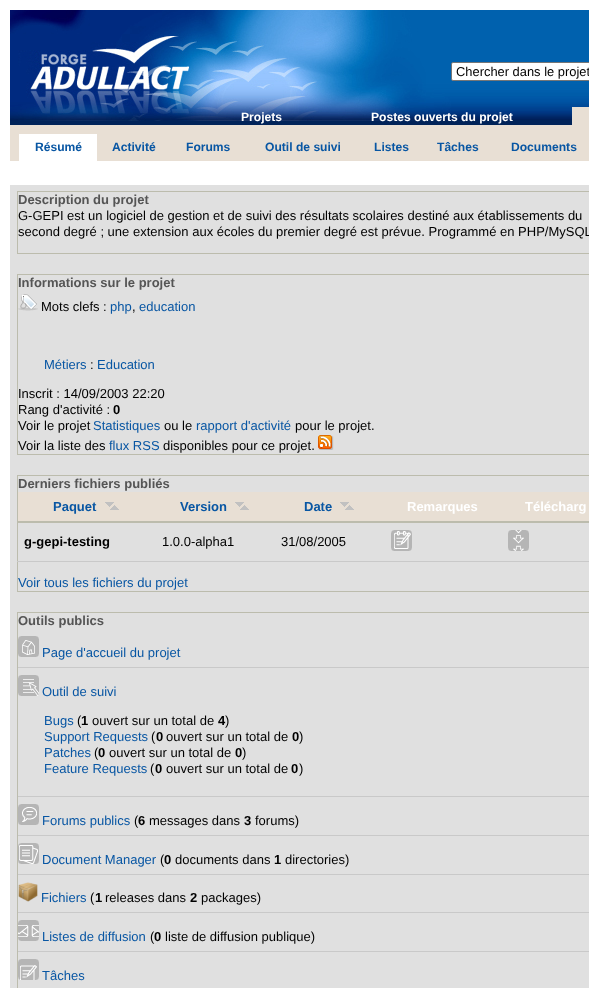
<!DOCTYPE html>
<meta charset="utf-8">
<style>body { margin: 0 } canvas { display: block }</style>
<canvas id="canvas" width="589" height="988"></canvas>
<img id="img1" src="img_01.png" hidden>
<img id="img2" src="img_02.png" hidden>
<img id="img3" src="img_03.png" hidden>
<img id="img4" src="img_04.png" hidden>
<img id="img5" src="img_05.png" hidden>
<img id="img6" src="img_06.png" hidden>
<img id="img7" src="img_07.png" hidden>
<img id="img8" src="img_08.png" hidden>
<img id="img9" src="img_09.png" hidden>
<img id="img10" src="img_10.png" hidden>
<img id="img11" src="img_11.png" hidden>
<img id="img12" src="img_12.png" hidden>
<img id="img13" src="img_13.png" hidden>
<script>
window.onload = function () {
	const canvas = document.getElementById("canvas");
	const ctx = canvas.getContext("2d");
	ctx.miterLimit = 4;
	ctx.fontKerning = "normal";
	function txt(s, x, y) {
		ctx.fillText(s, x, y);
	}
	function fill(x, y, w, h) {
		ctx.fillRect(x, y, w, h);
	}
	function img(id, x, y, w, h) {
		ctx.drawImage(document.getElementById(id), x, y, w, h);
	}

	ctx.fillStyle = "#FFFFFF";
	fill(0, 0, 589, 988);
	ctx.fillStyle = "#002359";
	fill(10, 121, 562, 4);
	img("img1", 10, 10, 579, 111);
	ctx.fillStyle = "#FFFFFF";
	ctx.beginPath();
	ctx.roundRect(451.5, 62.5, 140, 18, 1.5);
	ctx.fill();
	ctx.strokeStyle = "#767676";
	ctx.stroke();
	ctx.fillStyle = "#E8DFD4";
	fill(572, 107, 17, 18);
	fill(10, 125, 579, 36);
	ctx.fillStyle = "#FFFFFF";
	fill(19, 134, 78, 27);
	ctx.fillStyle = "#E0E0E0";
	fill(10, 185, 579, 803);
	ctx.strokeStyle = "#BCBCAD";
	ctx.strokeRect(17.5, 191.5, 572, 62);
	ctx.strokeRect(17.5, 274.5, 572, 180);
	img("img2", 18, 294, 20, 17);
	img("img3", 318, 435, 16, 15);
	ctx.strokeRect(17.5, 475.5, 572, 116);
	ctx.fillStyle = "#E8DFD4";
	fill(18, 492, 571, 29);
	img("img4", 105, 502, 14, 8);
	img("img4", 235, 502, 14, 8);
	img("img4", 340, 502, 14, 8);
	ctx.fillStyle = "#BCBCAD";
	fill(17, 521, 572, 2);
	ctx.fillStyle = "#C9C9C9";
	fill(17, 561, 572, 1);
	img("img5", 391, 530, 21, 21);
	img("img6", 508, 530, 21, 21);
	ctx.strokeRect(17.5, 612.5, 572, 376);
	fill(18, 667, 571, 1);
	img("img7", 18, 636, 21, 21);
	fill(18, 796, 571, 1);
	img("img8", 18, 675, 21, 21);
	fill(18, 835, 571, 1);
	img("img9", 18, 804, 21, 21);
	fill(18, 874, 571, 1);
	img("img10", 18, 843, 21, 21);
	fill(18, 912, 571, 1);
	img("img11", 18, 882, 20, 20);
	fill(18, 951, 571, 1);
	img("img12", 18, 920, 21, 21);
	img("img13", 18, 959, 21, 21);
	ctx.font = "12.9px Liberation Sans";
	ctx.fillStyle = "#000000";
	txt("Chercher dans le projet", 456, 76);
	ctx.font = "bold 12.1px Liberation Sans";
	ctx.fillStyle = "#FFFFFF";
	txt("Projets", 241, 121);
	txt("Postes ouverts du projet", 371, 121);
	ctx.fillStyle = "#0856A3";
	txt("Résumé", 35, 151);
	txt("Activité", 112, 151);
	txt("Forums", 186, 151);
	txt("Outil de suivi", 265, 151);
	txt("Listes", 374, 151);
	txt("Tâches", 437, 151);
	txt("Documents", 511, 151);
	ctx.font = "bold 13px Liberation Sans";
	ctx.fillStyle = "#555555";
	txt("Description du projet", 18, 204);
	ctx.font = "13px Liberation Sans";
	ctx.fillStyle = "#000000";
	txt("G-GEPI est un logiciel de gestion et de suivi des résultats scolaires destiné aux établissements du", 18, 220);
	txt("second degré ; une extension aux écoles du premier degré est prévue. Programmé en PHP/MySQL", 18, 236);
	ctx.font = "bold 13px Liberation Sans";
	ctx.fillStyle = "#555555";
	txt("Informations sur le projet", 18, 287);
	ctx.font = "13px Liberation Sans";
	ctx.fillStyle = "#000000";
	txt("Mots clefs :", 41, 311);
	ctx.fillStyle = "#0856A3";
	txt("php", 110, 311);
	ctx.fillStyle = "#000000";
	txt(",", 132, 311);
	ctx.fillStyle = "#0856A3";
	txt("education", 139, 311);
	txt("Métiers", 44, 369);
	ctx.fillStyle = "#000000";
	txt(":", 90, 369);
	ctx.fillStyle = "#0856A3";
	txt("Education", 97, 369);
	ctx.fillStyle = "#000000";
	txt("Inscrit : 14/09/2003 22:20", 18, 398);
	txt("Rang d'activité :", 18, 414);
	ctx.font = "bold 13px Liberation Sans";
	txt("0", 113, 414);
	ctx.font = "13px Liberation Sans";
	txt("Voir le projet", 18, 430);
	ctx.fillStyle = "#0856A3";
	txt("Statistiques", 93, 430);
	ctx.fillStyle = "#000000";
	txt("ou le", 164, 430);
	ctx.fillStyle = "#0856A3";
	txt("rapport d'activité", 196, 430);
	ctx.fillStyle = "#000000";
	txt("pour le projet.", 295, 430);
	txt("Voir la liste des", 18, 450);
	ctx.fillStyle = "#0856A3";
	txt("flux RSS", 109, 450);
	ctx.fillStyle = "#000000";
	txt("disponibles pour ce projet.", 163, 450);
	ctx.font = "bold 13px Liberation Sans";
	ctx.fillStyle = "#555555";
	txt("Derniers fichiers publiés", 18, 488);
	ctx.fillStyle = "#0856A3";
	txt("Paquet", 53, 511);
	txt("Version", 180, 511);
	txt("Date", 304, 511);
	ctx.fillStyle = "#FFFFFF";
	txt("Remarques", 407, 511);
	txt("Télécharg", 525, 511);
	ctx.fillStyle = "#000000";
	txt("g-gepi-testing", 24, 546);
	ctx.font = "13px Liberation Sans";
	txt("1.0.0-alpha1", 162, 546);
	txt("31/08/2005", 281, 546);
	ctx.fillStyle = "#0856A3";
	txt("Voir tous les fichiers du projet", 18, 587);
	ctx.font = "bold 13px Liberation Sans";
	ctx.fillStyle = "#555555";
	txt("Outils publics", 18, 625);
	ctx.font = "13px Liberation Sans";
	ctx.fillStyle = "#0856A3";
	txt("Page d'accueil du projet", 42, 657);
	txt("Outil de suivi", 42, 696);
	txt("Bugs", 44, 725);
	ctx.fillStyle = "#000000";
	txt("(", 77, 725);
	ctx.font = "bold 13px Liberation Sans";
	txt("1", 81, 725);
	ctx.font = "13px Liberation Sans";
	txt("ouvert sur un total de", 92, 725);
	ctx.font = "bold 13px Liberation Sans";
	txt("4", 218, 725);
	ctx.font = "13px Liberation Sans";
	txt(")", 225, 725);
	ctx.fillStyle = "#0856A3";
	txt("Support Requests", 44, 741);
	ctx.fillStyle = "#000000";
	txt("(", 151, 741);
	ctx.font = "bold 13px Liberation Sans";
	txt("0", 156, 741);
	ctx.font = "13px Liberation Sans";
	txt("ouvert sur un total de", 166, 741);
	ctx.font = "bold 13px Liberation Sans";
	txt("0", 292, 741);
	ctx.font = "13px Liberation Sans";
	txt(")", 299, 741);
	ctx.fillStyle = "#0856A3";
	txt("Patches", 44, 757);
	ctx.fillStyle = "#000000";
	txt("(", 94, 757);
	ctx.font = "bold 13px Liberation Sans";
	txt("0", 98, 757);
	ctx.font = "13px Liberation Sans";
	txt("ouvert sur un total de", 109, 757);
	ctx.font = "bold 13px Liberation Sans";
	txt("0", 235, 757);
	ctx.font = "13px Liberation Sans";
	txt(")", 242, 757);
	ctx.fillStyle = "#0856A3";
	txt("Feature Requests", 44, 773);
	ctx.fillStyle = "#000000";
	txt("(", 150, 773);
	ctx.font = "bold 13px Liberation Sans";
	txt("0", 155, 773);
	ctx.font = "13px Liberation Sans";
	txt("ouvert sur un total de", 166, 773);
	ctx.font = "bold 13px Liberation Sans";
	txt("0", 291, 773);
	ctx.font = "13px Liberation Sans";
	txt(")", 299, 773);
	ctx.fillStyle = "#0856A3";
	txt("Forums publics", 42, 825);
	ctx.fillStyle = "#000000";
	txt("(", 134, 825);
	ctx.font = "bold 13px Liberation Sans";
	txt("6", 138, 825);
	ctx.font = "13px Liberation Sans";
	txt("messages dans", 149, 825);
	ctx.font = "bold 13px Liberation Sans";
	txt("3", 244, 825);
	ctx.font = "13px Liberation Sans";
	txt("forums)", 255, 825);
	ctx.fillStyle = "#0856A3";
	txt("Document Manager", 42, 864);
	ctx.fillStyle = "#000000";
	txt("(", 160, 864);
	ctx.font = "bold 13px Liberation Sans";
	txt("0", 164, 864);
	ctx.font = "13px Liberation Sans";
	txt("documents dans", 175, 864);
	ctx.font = "bold 13px Liberation Sans";
	txt("1", 274, 864);
	ctx.font = "13px Liberation Sans";
	txt("directories)", 285, 864);
	ctx.fillStyle = "#0856A3";
	txt("Fichiers", 41, 902);
	ctx.fillStyle = "#000000";
	txt("(", 90, 902);
	ctx.font = "bold 13px Liberation Sans";
	txt("1", 95, 902);
	ctx.font = "13px Liberation Sans";
	txt("releases dans", 105, 902);
	ctx.font = "bold 13px Liberation Sans";
	txt("2", 190, 902);
	ctx.font = "13px Liberation Sans";
	txt("packages)", 201, 902);
	ctx.fillStyle = "#0856A3";
	txt("Listes de diffusion", 42, 941);
	ctx.fillStyle = "#000000";
	txt("(", 150, 941);
	ctx.font = "bold 13px Liberation Sans";
	txt("0", 154, 941);
	ctx.font = "13px Liberation Sans";
	txt("liste de diffusion publique)", 165, 941);
	ctx.fillStyle = "#0856A3";
	txt("Tâches", 42, 980);
};
</script>
